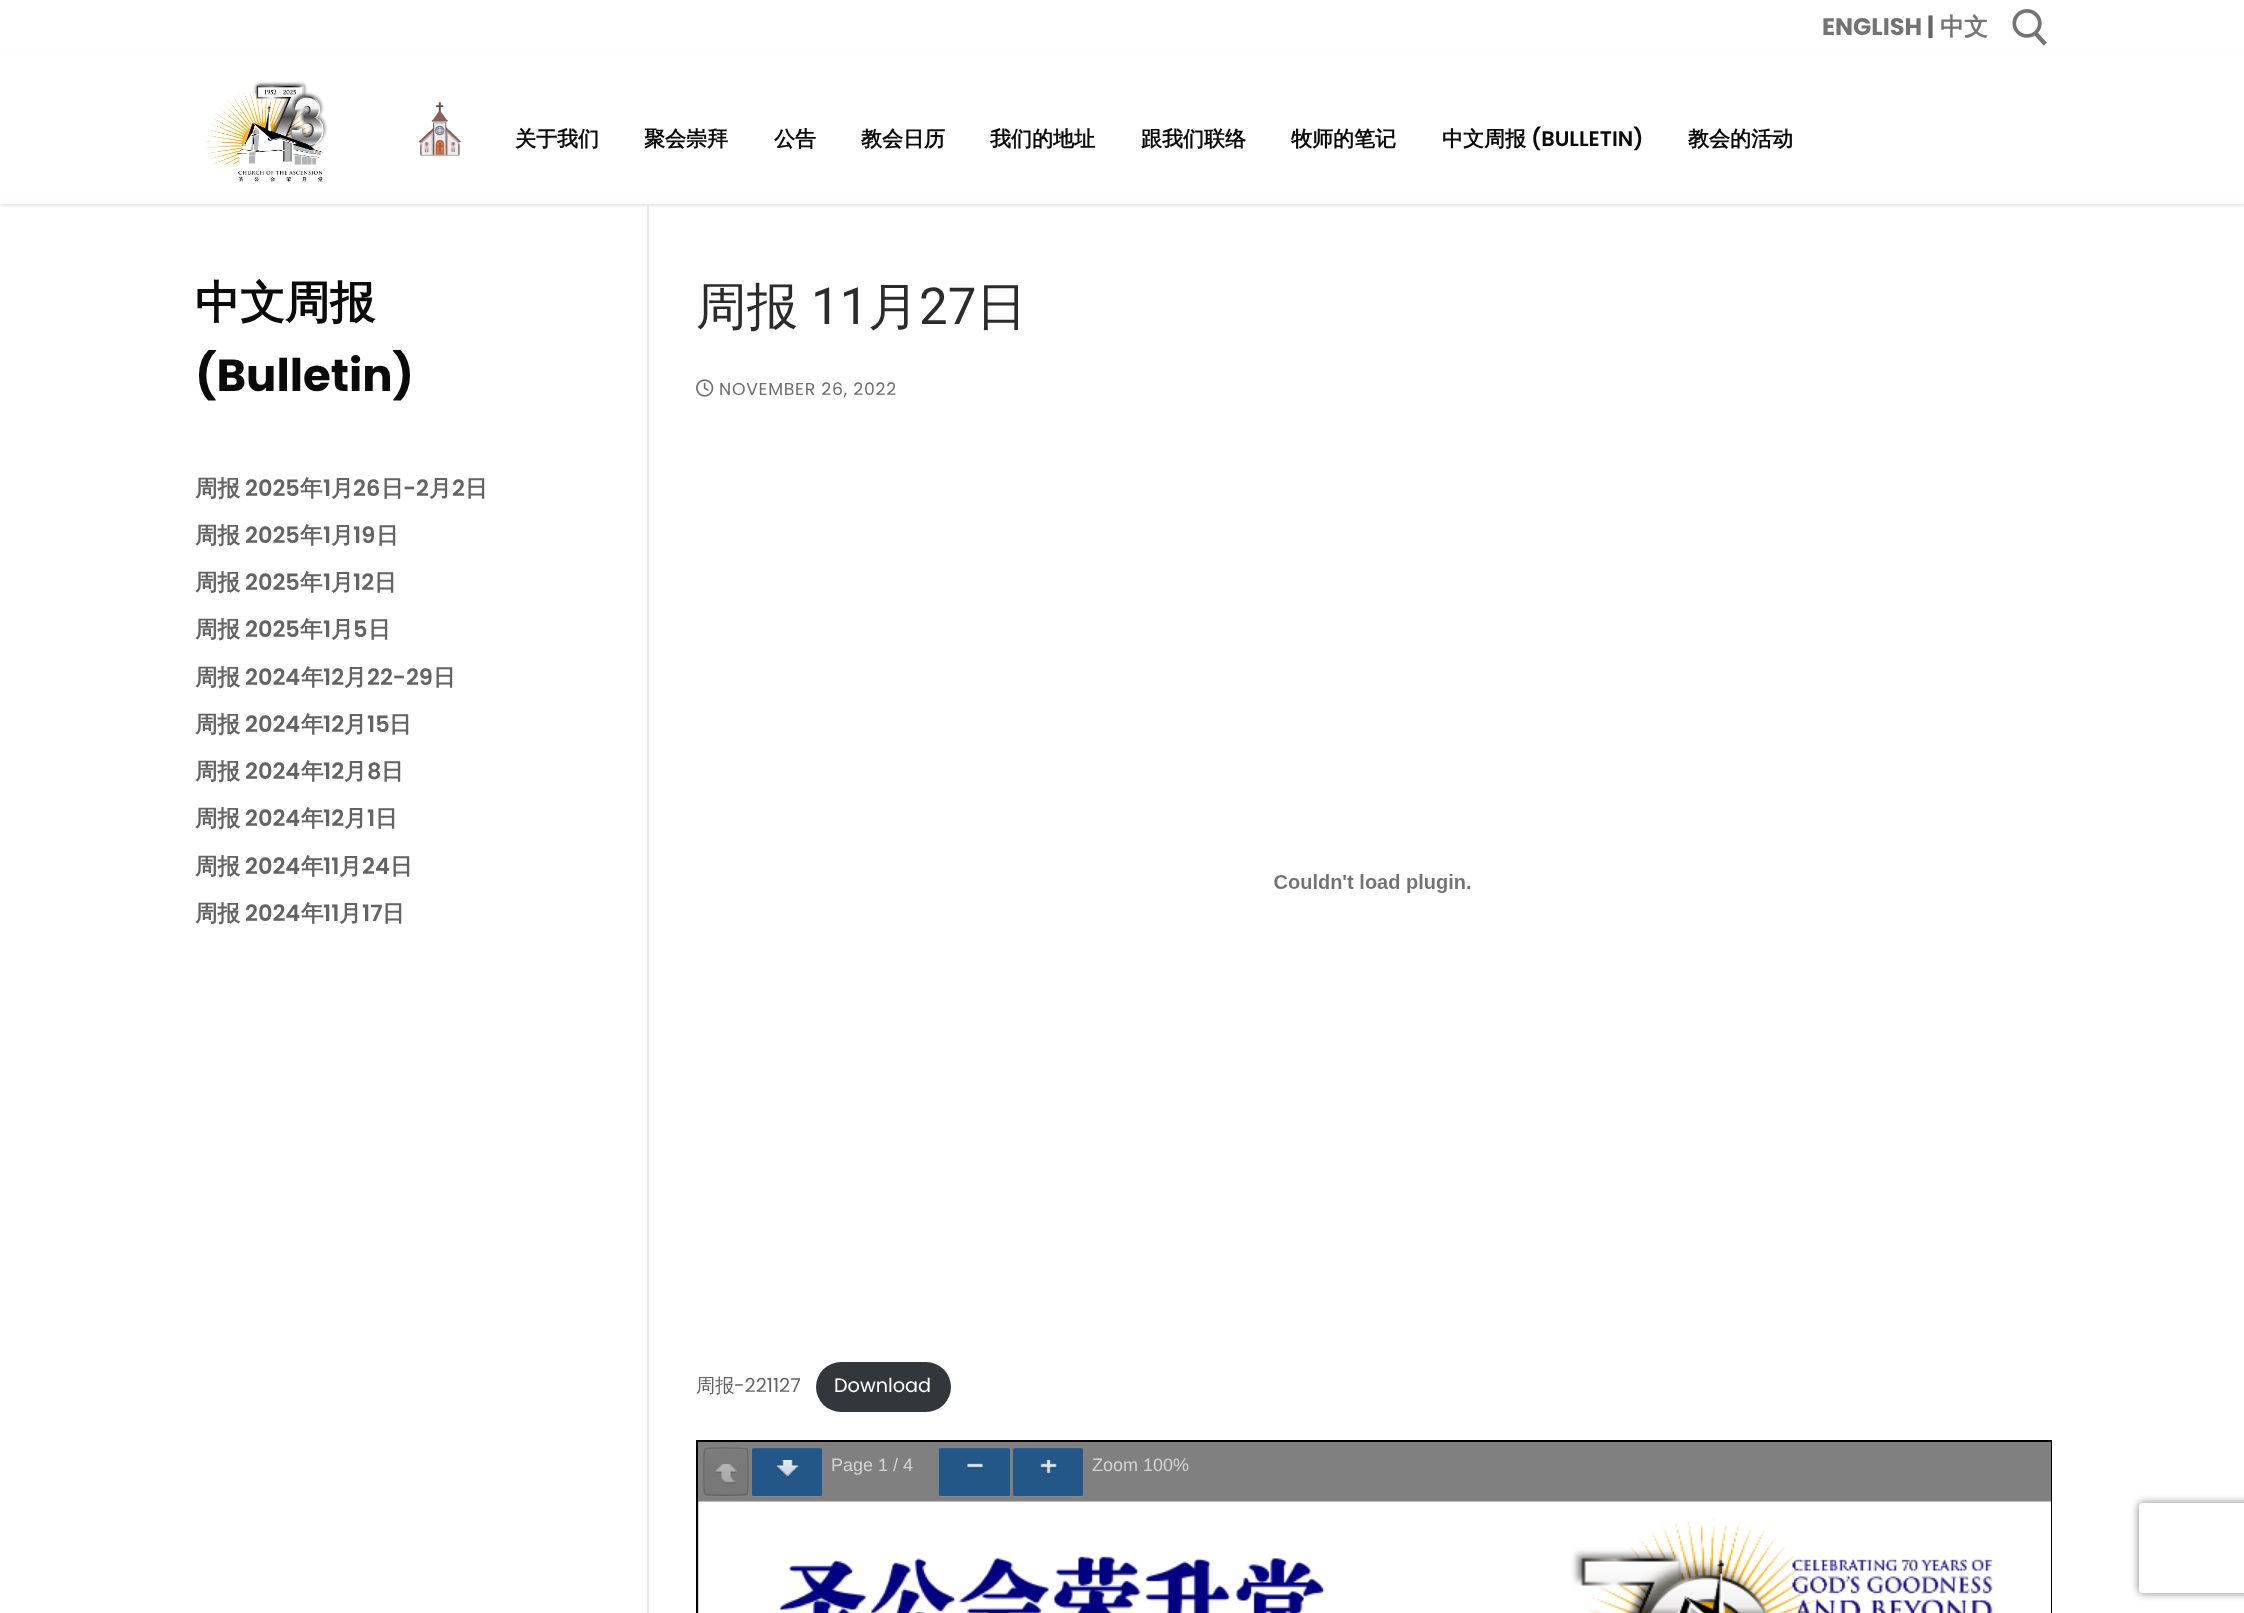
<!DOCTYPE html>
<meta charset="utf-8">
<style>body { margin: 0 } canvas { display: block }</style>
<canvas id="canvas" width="2244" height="1613"></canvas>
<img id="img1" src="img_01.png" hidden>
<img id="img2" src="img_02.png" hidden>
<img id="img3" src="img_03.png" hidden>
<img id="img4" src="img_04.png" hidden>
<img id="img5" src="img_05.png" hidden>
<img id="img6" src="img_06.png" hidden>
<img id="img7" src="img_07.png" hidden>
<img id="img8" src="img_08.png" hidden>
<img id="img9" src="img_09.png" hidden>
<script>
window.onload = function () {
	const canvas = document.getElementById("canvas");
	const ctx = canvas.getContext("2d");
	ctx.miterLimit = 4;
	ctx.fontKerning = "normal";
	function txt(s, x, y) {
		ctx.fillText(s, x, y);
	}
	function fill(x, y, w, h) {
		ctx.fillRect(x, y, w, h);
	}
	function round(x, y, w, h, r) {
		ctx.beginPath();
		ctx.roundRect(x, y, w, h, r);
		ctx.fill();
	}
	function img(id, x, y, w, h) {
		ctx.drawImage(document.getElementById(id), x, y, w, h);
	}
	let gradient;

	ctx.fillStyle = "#FFFFFF";
	fill(0, 0, 2244, 1613);
	img("img1", 2012, 9, 35, 37);
	ctx.fillStyle = "#EAECEE";
	fill(647, 204, 2, 1409);
	ctx.save();
	ctx.beginPath();
	ctx.moveTo(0, 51);
	ctx.lineTo(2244, 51);
	ctx.lineTo(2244, 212);
	ctx.lineTo(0, 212);
	ctx.closePath();
	ctx.moveTo(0, 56);
	ctx.lineTo(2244, 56);
	ctx.lineTo(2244, 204);
	ctx.lineTo(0, 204);
	ctx.closePath();
	ctx.clip("evenodd");
	ctx.fillStyle = "#E1E5EA";
	ctx.filter = "blur(1.5px)";
	ctx.beginPath();
	ctx.rect(0, 57, 2244, 149);
	ctx.fill();
	ctx.filter = "none";
	ctx.restore();
	img("img2", 205, 81, 123, 101);
	img("img3", 696, 379, 18, 18);
	img("img4", 1274, 874, 197, 19);
	ctx.fillStyle = "#32373C";
	round(816, 1362, 135, 50, 25);
	ctx.fillStyle = "#D3D3D3";
	fill(698, 1502, 1, 111);
	ctx.strokeStyle = "#000000";
	ctx.lineWidth = 2;
	ctx.strokeRect(697, 1441, 1354, 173);
	ctx.fillStyle = "#808080";
	fill(698, 1442, 1353, 60);
	ctx.fillStyle = "#838383";
	ctx.beginPath();
	ctx.moveTo(704, 1494);
	ctx.bezierCurveTo(704, 1496, 705, 1497, 707, 1497);
	ctx.lineTo(746, 1497);
	ctx.bezierCurveTo(748, 1497, 749, 1496, 749, 1494);
	ctx.lineTo(749, 1452);
	ctx.lineTo(748, 1450);
	ctx.lineTo(748, 1486);
	ctx.bezierCurveTo(748, 1499, 748, 1496, 732, 1496);
	ctx.lineTo(713, 1496);
	ctx.bezierCurveTo(711, 1496, 706, 1497, 704, 1494);
	ctx.closePath();
	ctx.fill();
	ctx.fillStyle = "#787878";
	round(705, 1449, 42, 45, 1.5);
	gradient = ctx.createLinearGradient(726, 1449, 726, 1494);
	gradient.addColorStop(0, "rgba(192, 192, 192, 0.05)");
	gradient.addColorStop(1, "rgba(192, 192, 192, 0)");
	ctx.fillStyle = gradient;
	fill(705, 1449, 42, 15);
	ctx.fillStyle = "#7E7E7E";
	ctx.beginPath();
	ctx.moveTo(706, 1450);
	ctx.lineTo(746, 1450);
	ctx.lineTo(747, 1451);
	ctx.bezierCurveTo(747, 1447, 742, 1449, 739, 1449);
	ctx.lineTo(713, 1449);
	ctx.bezierCurveTo(711, 1449, 705, 1447, 705, 1451);
	ctx.closePath();
	ctx.fill();
	ctx.beginPath();
	ctx.moveTo(705, 1449);
	ctx.bezierCurveTo(706, 1447.5, 746, 1447.5, 747, 1449);
	ctx.strokeStyle = "#6B6B6B";
	ctx.lineWidth = 1.5;
	ctx.stroke();
	ctx.beginPath();
	ctx.moveTo(747, 1449);
	ctx.bezierCurveTo(748.5, 1450, 748.5, 1493, 747, 1494);
	ctx.strokeStyle = "rgba(64, 64, 64, 0.38)";
	ctx.stroke();
	ctx.beginPath();
	ctx.moveTo(747, 1494);
	ctx.bezierCurveTo(746, 1495.5, 706, 1495.5, 705, 1494);
	ctx.strokeStyle = "#656565";
	ctx.stroke();
	ctx.beginPath();
	ctx.moveTo(705, 1494);
	ctx.bezierCurveTo(703.5, 1493, 703.5, 1450, 705, 1449);
	ctx.strokeStyle = "#686868";
	ctx.stroke();
	img("img5", 715, 1464, 22, 20);
	ctx.fillStyle = "#868686";
	ctx.beginPath();
	ctx.moveTo(752, 1495);
	ctx.bezierCurveTo(752, 1499, 761, 1497, 765, 1497);
	ctx.lineTo(809, 1497);
	ctx.bezierCurveTo(815, 1497, 822, 1500, 822, 1494);
	ctx.bezierCurveTo(822, 1495, 821, 1496, 820, 1496);
	ctx.lineTo(753, 1496);
	ctx.closePath();
	ctx.fill();
	ctx.fillStyle = "#235787";
	round(752, 1448, 70, 48, 1.5);
	ctx.fillStyle = "rgba(255, 255, 255, 0.05)";
	ctx.beginPath();
	ctx.moveTo(753, 1449);
	ctx.lineTo(820, 1449);
	ctx.lineTo(822, 1450);
	ctx.bezierCurveTo(822, 1449, 822, 1448, 821, 1448);
	ctx.lineTo(753, 1448);
	ctx.lineTo(752, 1450);
	ctx.closePath();
	ctx.fill();
	img("img6", 776, 1460, 23, 18);
	ctx.fillStyle = "#868686";
	ctx.beginPath();
	ctx.moveTo(939, 1494);
	ctx.lineTo(939, 1496);
	ctx.bezierCurveTo(939, 1496, 940, 1497, 940, 1497);
	ctx.lineTo(1008, 1497);
	ctx.bezierCurveTo(1009, 1497, 1010, 1496, 1010, 1496);
	ctx.lineTo(1010, 1450);
	ctx.lineTo(1010, 1449);
	ctx.lineTo(1009, 1495);
	ctx.lineTo(940, 1496);
	ctx.bezierCurveTo(940, 1495, 939, 1495, 939, 1494);
	ctx.closePath();
	ctx.fill();
	ctx.fillStyle = "#235787";
	round(939, 1448, 71, 48, 1.5);
	ctx.fillStyle = "rgba(255, 255, 255, 0.05)";
	ctx.beginPath();
	ctx.moveTo(940, 1449);
	ctx.lineTo(1008, 1449);
	ctx.lineTo(1010, 1450);
	ctx.bezierCurveTo(1010, 1449, 1010, 1448, 1009, 1448);
	ctx.lineTo(940, 1448);
	ctx.lineTo(939, 1450);
	ctx.closePath();
	ctx.fill();
	img("img7", 967, 1463, 16, 6);
	ctx.fillStyle = "#868686";
	ctx.beginPath();
	ctx.moveTo(1013, 1495);
	ctx.bezierCurveTo(1013, 1499, 1022, 1497, 1026, 1497);
	ctx.lineTo(1070, 1497);
	ctx.bezierCurveTo(1076, 1497, 1083, 1500, 1083, 1494);
	ctx.bezierCurveTo(1083, 1495, 1082, 1496, 1082, 1496);
	ctx.lineTo(1014, 1496);
	ctx.closePath();
	ctx.fill();
	ctx.fillStyle = "#235787";
	round(1013, 1448, 70, 48, 1.5);
	ctx.fillStyle = "rgba(255, 255, 255, 0.05)";
	ctx.beginPath();
	ctx.moveTo(1014, 1449);
	ctx.lineTo(1082, 1449);
	ctx.lineTo(1083, 1450);
	ctx.bezierCurveTo(1083, 1449, 1082, 1448, 1082, 1448);
	ctx.lineTo(1014, 1448);
	ctx.bezierCurveTo(1014, 1448, 1013, 1449, 1013, 1449);
	ctx.closePath();
	ctx.fill();
	img("img8", 1040, 1460, 17, 15);
	img("img9", 699, 1501, 1352, 112);
	ctx.save();
	ctx.beginPath();
	ctx.moveTo(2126, 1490);
	ctx.lineTo(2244, 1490);
	ctx.lineTo(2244, 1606);
	ctx.lineTo(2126, 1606);
	ctx.closePath();
	ctx.moveTo(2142, 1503);
	ctx.lineTo(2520, 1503);
	ctx.bezierCurveTo(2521.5, 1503, 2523, 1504.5, 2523, 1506);
	ctx.lineTo(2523, 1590);
	ctx.bezierCurveTo(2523, 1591.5, 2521.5, 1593, 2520, 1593);
	ctx.lineTo(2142, 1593);
	ctx.bezierCurveTo(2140.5, 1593, 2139, 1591.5, 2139, 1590);
	ctx.lineTo(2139, 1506);
	ctx.bezierCurveTo(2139, 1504.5, 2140.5, 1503, 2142, 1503);
	ctx.closePath();
	ctx.clip("evenodd");
	ctx.fillStyle = "#808080";
	ctx.filter = "blur(4px)";
	ctx.beginPath();
	ctx.roundRect(2139, 1503, 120, 90, 3);
	ctx.fill();
	ctx.filter = "none";
	ctx.restore();
	ctx.font = "bold 24px Poppins";
	ctx.fillStyle = "#737373";
	txt("ENGLISH", 1822, 35);
	ctx.fillStyle = "#636363";
	txt("|", 1927, 35);
	ctx.font = "bold 24px WenQuanYi Zen Hei";
	ctx.fillStyle = "#737373";
	txt("中文", 1940, 35);
	ctx.font = "bold 48px Noto Color Emoji";
	ctx.fillStyle = "#0A0A0A";
	txt("⛪", 410, 146);
	ctx.font = "bold 21px WenQuanYi Zen Hei";
	txt("关于我们", 515, 146);
	txt("聚会崇拜", 644, 146);
	txt("公告", 774, 146);
	txt("教会日历", 861, 146);
	txt("我们的地址", 990, 146);
	txt("跟我们联络", 1141, 146);
	txt("牧师的笔记", 1291, 146);
	txt("中文周报", 1442, 146);
	ctx.font = "600 21px Poppins";
	txt("(BULLETIN)", 1531, 146);
	ctx.font = "bold 21px WenQuanYi Zen Hei";
	txt("教会的活动", 1688, 146);
	ctx.font = "bold 45px WenQuanYi Zen Hei";
	txt("中文周报", 195, 318);
	ctx.font = "bold 45px Poppins";
	txt("(Bulletin)", 195, 391);
	ctx.font = "bold 22.5px WenQuanYi Zen Hei";
	ctx.fillStyle = "#636363";
	txt("周报", 195, 496);
	ctx.font = "600 22.5px Poppins";
	txt("2025", 245, 496);
	ctx.font = "bold 22.5px WenQuanYi Zen Hei";
	txt("年", 300, 496);
	ctx.font = "600 22.5px Poppins";
	txt("1", 323, 496);
	ctx.font = "bold 22.5px WenQuanYi Zen Hei";
	txt("月", 331, 496);
	ctx.font = "600 22.5px Poppins";
	txt("26", 353, 496);
	ctx.font = "bold 22.5px WenQuanYi Zen Hei";
	txt("日", 381, 496);
	ctx.font = "600 22.5px Poppins";
	txt("-2", 403, 496);
	ctx.font = "bold 22.5px WenQuanYi Zen Hei";
	txt("月", 429, 496);
	ctx.font = "600 22.5px Poppins";
	txt("2", 452, 496);
	ctx.font = "bold 22.5px WenQuanYi Zen Hei";
	txt("日", 465, 496);
	txt("周报", 195, 543);
	ctx.font = "600 22.5px Poppins";
	txt("2025", 245, 543);
	ctx.font = "bold 22.5px WenQuanYi Zen Hei";
	txt("年", 300, 543);
	ctx.font = "600 22.5px Poppins";
	txt("1", 323, 543);
	ctx.font = "bold 22.5px WenQuanYi Zen Hei";
	txt("月", 331, 543);
	ctx.font = "600 22.5px Poppins";
	txt("19", 353, 543);
	ctx.font = "bold 22.5px WenQuanYi Zen Hei";
	txt("日", 376, 543);
	txt("周报", 195, 590);
	ctx.font = "600 22.5px Poppins";
	txt("2025", 245, 590);
	ctx.font = "bold 22.5px WenQuanYi Zen Hei";
	txt("年", 300, 590);
	ctx.font = "600 22.5px Poppins";
	txt("1", 323, 590);
	ctx.font = "bold 22.5px WenQuanYi Zen Hei";
	txt("月", 331, 590);
	ctx.font = "600 22.5px Poppins";
	txt("12", 353, 590);
	ctx.font = "bold 22.5px WenQuanYi Zen Hei";
	txt("日", 374, 590);
	txt("周报", 195, 637);
	ctx.font = "600 22.5px Poppins";
	txt("2025", 245, 637);
	ctx.font = "bold 22.5px WenQuanYi Zen Hei";
	txt("年", 300, 637);
	ctx.font = "600 22.5px Poppins";
	txt("1", 323, 637);
	ctx.font = "bold 22.5px WenQuanYi Zen Hei";
	txt("月", 331, 637);
	ctx.font = "600 22.5px Poppins";
	txt("5", 353, 637);
	ctx.font = "bold 22.5px WenQuanYi Zen Hei";
	txt("日", 368, 637);
	txt("周报", 195, 685);
	ctx.font = "600 22.5px Poppins";
	txt("2024", 245, 685);
	ctx.font = "bold 22.5px WenQuanYi Zen Hei";
	txt("年", 301, 685);
	ctx.font = "600 22.5px Poppins";
	txt("12", 323, 685);
	ctx.font = "bold 22.5px WenQuanYi Zen Hei";
	txt("月", 344, 685);
	ctx.font = "600 22.5px Poppins";
	txt("22-29", 367, 685);
	ctx.font = "bold 22.5px WenQuanYi Zen Hei";
	txt("日", 433, 685);
	txt("周报", 195, 732);
	ctx.font = "600 22.5px Poppins";
	txt("2024", 245, 732);
	ctx.font = "bold 22.5px WenQuanYi Zen Hei";
	txt("年", 301, 732);
	ctx.font = "600 22.5px Poppins";
	txt("12", 323, 732);
	ctx.font = "bold 22.5px WenQuanYi Zen Hei";
	txt("月", 344, 732);
	ctx.font = "600 22.5px Poppins";
	txt("15", 367, 732);
	ctx.font = "bold 22.5px WenQuanYi Zen Hei";
	txt("日", 389, 732);
	txt("周报", 195, 779);
	ctx.font = "600 22.5px Poppins";
	txt("2024", 245, 779);
	ctx.font = "bold 22.5px WenQuanYi Zen Hei";
	txt("年", 301, 779);
	ctx.font = "600 22.5px Poppins";
	txt("12", 323, 779);
	ctx.font = "bold 22.5px WenQuanYi Zen Hei";
	txt("月", 344, 779);
	ctx.font = "600 22.5px Poppins";
	txt("8", 367, 779);
	ctx.font = "bold 22.5px WenQuanYi Zen Hei";
	txt("日", 381, 779);
	txt("周报", 195, 826);
	ctx.font = "600 22.5px Poppins";
	txt("2024", 245, 826);
	ctx.font = "bold 22.5px WenQuanYi Zen Hei";
	txt("年", 301, 826);
	ctx.font = "600 22.5px Poppins";
	txt("12", 323, 826);
	ctx.font = "bold 22.5px WenQuanYi Zen Hei";
	txt("月", 344, 826);
	ctx.font = "600 22.5px Poppins";
	txt("1", 367, 826);
	ctx.font = "bold 22.5px WenQuanYi Zen Hei";
	txt("日", 375, 826);
	txt("周报", 195, 874);
	ctx.font = "600 22.5px Poppins";
	txt("2024", 245, 874);
	ctx.font = "bold 22.5px WenQuanYi Zen Hei";
	txt("年", 301, 874);
	ctx.font = "600 22.5px Poppins";
	txt("11", 323, 874);
	ctx.font = "bold 22.5px WenQuanYi Zen Hei";
	txt("月", 339, 874);
	ctx.font = "600 22.5px Poppins";
	txt("24", 362, 874);
	ctx.font = "bold 22.5px WenQuanYi Zen Hei";
	txt("日", 390, 874);
	txt("周报", 195, 921);
	ctx.font = "600 22.5px Poppins";
	txt("2024", 245, 921);
	ctx.font = "bold 22.5px WenQuanYi Zen Hei";
	txt("年", 301, 921);
	ctx.font = "600 22.5px Poppins";
	txt("11", 323, 921);
	ctx.font = "bold 22.5px WenQuanYi Zen Hei";
	txt("月", 339, 921);
	ctx.font = "600 22.5px Poppins";
	txt("17", 362, 921);
	ctx.font = "bold 22.5px WenQuanYi Zen Hei";
	txt("日", 382, 921);
	ctx.font = "500 51px WenQuanYi Zen Hei";
	ctx.fillStyle = "#2B2B2B";
	txt("周报", 696, 324);
	ctx.font = "51px Roboto";
	txt("11", 811, 324);
	ctx.font = "500 51px WenQuanYi Zen Hei";
	txt("月", 868, 324);
	ctx.font = "51px Roboto";
	txt("27", 919, 324);
	ctx.font = "500 51px WenQuanYi Zen Hei";
	txt("日", 976, 324);
	ctx.letterSpacing = "0.75px";
	ctx.font = "17.25px Poppins";
	ctx.fillStyle = "#6D6D6D";
	txt("NOVEMBER 26, 2022", 719, 395);
	ctx.letterSpacing = "0px";
	ctx.font = "500 19.25px WenQuanYi Zen Hei";
	ctx.fillStyle = "#636363";
	txt("周报", 696, 1392);
	ctx.font = "19.25px Poppins";
	txt("-221127", 734, 1392);
	ctx.fillStyle = "#FFFFFF";
	txt("Download", 834, 1392);
	ctx.font = "18px Liberation Sans";
	ctx.fillStyle = "#D3D3D3";
	txt("Page 1 / 4", 831, 1471);
	txt("Zoom 100%", 1092, 1471);
};
</script>
